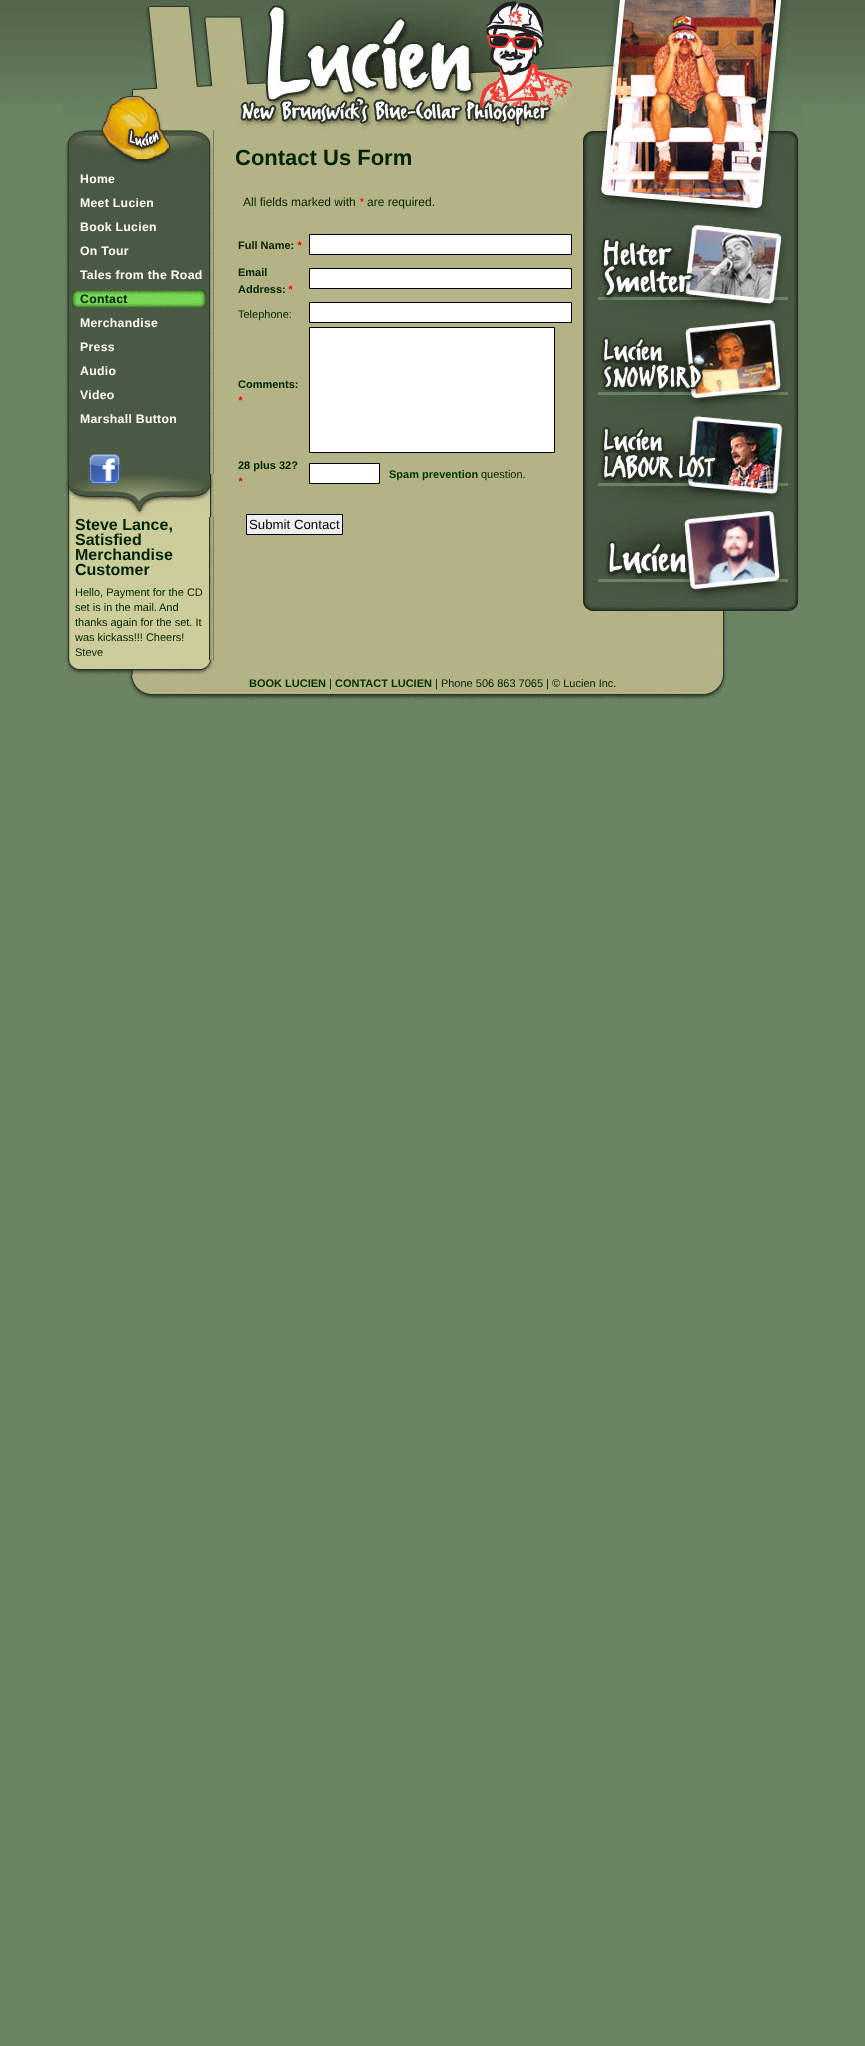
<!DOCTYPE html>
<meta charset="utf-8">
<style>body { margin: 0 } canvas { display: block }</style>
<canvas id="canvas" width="865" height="2046"></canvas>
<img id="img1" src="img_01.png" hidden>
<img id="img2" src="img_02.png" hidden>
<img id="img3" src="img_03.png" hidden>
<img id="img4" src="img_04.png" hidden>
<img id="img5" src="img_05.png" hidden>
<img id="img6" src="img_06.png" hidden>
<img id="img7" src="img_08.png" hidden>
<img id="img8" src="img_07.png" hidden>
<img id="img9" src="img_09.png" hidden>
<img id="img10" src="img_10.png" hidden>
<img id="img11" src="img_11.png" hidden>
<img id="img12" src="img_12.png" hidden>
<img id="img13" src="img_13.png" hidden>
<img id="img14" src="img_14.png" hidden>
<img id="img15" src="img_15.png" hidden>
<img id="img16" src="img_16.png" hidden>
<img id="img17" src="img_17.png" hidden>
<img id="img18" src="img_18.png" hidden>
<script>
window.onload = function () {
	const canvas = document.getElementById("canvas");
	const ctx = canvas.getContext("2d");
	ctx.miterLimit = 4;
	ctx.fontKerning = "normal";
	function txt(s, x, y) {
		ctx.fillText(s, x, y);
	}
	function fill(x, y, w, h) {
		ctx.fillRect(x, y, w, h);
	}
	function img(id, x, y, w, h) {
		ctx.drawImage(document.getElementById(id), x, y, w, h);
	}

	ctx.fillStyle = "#6B8463";
	fill(0, 0, 865, 2046);
	img("img1", 0, 0, 865, 104);
	img("img2", 63, 130, 740, 570);
	img("img3", 63, 0, 740, 130);
	img("img4", 64, 130, 150, 530);
	img("img5", 63, 130, 150, 35);
	img("img6", 72, 290, 134, 18);
	img("img7", 63, 474, 151, 43);
	img("img8", 88, 454, 33, 32);
	img("img9", 64, 517, 149, 143);
	img("img10", 63, 660, 151, 15);
	ctx.fillStyle = "#FFFFFF";
	ctx.beginPath();
	ctx.rect(309.5, 234.5, 262, 20);
	ctx.fill();
	ctx.strokeStyle = "#000000";
	ctx.stroke();
	ctx.beginPath();
	ctx.rect(309.5, 268.5, 262, 20);
	ctx.fill();
	ctx.stroke();
	ctx.beginPath();
	ctx.rect(309.5, 302.5, 262, 20);
	ctx.fill();
	ctx.stroke();
	ctx.beginPath();
	ctx.rect(309.5, 327.5, 245, 125);
	ctx.fill();
	ctx.stroke();
	ctx.beginPath();
	ctx.rect(309.5, 463.5, 70, 20);
	ctx.fill();
	ctx.stroke();
	ctx.fillStyle = "#EFEFEF";
	ctx.beginPath();
	ctx.rect(246.5, 514.5, 96, 20);
	ctx.fill();
	ctx.stroke();
	img("img11", 583, 218, 216, 383);
	img("img12", 583, 130, 216, 88);
	img("img13", 591, 221, 207, 93);
	img("img14", 591, 316, 207, 95);
	img("img15", 591, 411, 204, 93);
	img("img16", 591, 506, 208, 93);
	img("img17", 583, 601, 216, 10);
	img("img18", 127, 675, 600, 25);
	ctx.letterSpacing = "0.3px";
	ctx.font = "bold 12.25px Liberation Sans";
	ctx.fillStyle = "#FFFDF4";
	txt("Home", 80, 183);
	txt("Meet Lucien", 80, 207);
	txt("Book Lucien", 80, 231);
	txt("On Tour", 80, 255);
	txt("Tales from the Road", 80, 279);
	ctx.fillStyle = "#001A00";
	txt("Contact", 80, 303);
	ctx.fillStyle = "#FFFDF4";
	txt("Merchandise", 80, 327);
	txt("Press", 80, 351);
	txt("Audio", 80, 375);
	txt("Video", 80, 399);
	txt("Marshall Button", 80, 423);
	ctx.letterSpacing = "0px";
	ctx.font = "bold 16px Liberation Sans";
	ctx.fillStyle = "#002200";
	txt("Steve Lance,", 75, 530);
	txt("Satisfied", 75, 545);
	txt("Merchandise", 75, 560);
	txt("Customer", 75, 575);
	ctx.font = "11px Liberation Sans";
	txt("Hello, Payment for the CD", 75, 596);
	txt("set is in the mail.", 75, 611);
	txt("And", 159, 611);
	txt("thanks again for the set. It", 75, 626);
	txt("was kickass!!! Cheers!", 75, 641);
	txt("Steve", 75, 656);
	ctx.font = "bold 22px Liberation Sans";
	txt("Contact Us Form", 235, 165);
	ctx.font = "12px Liberation Sans";
	txt("All fields marked with", 243, 206);
	ctx.font = "italic 12px Liberation Sans";
	ctx.fillStyle = "#FF0000";
	txt("*", 359, 206);
	ctx.font = "12px Liberation Sans";
	ctx.fillStyle = "#002200";
	txt("are required.", 367, 206);
	ctx.font = "bold 11px Liberation Sans";
	txt("Full Name:", 238, 249);
	ctx.font = "italic bold 11px Liberation Sans";
	ctx.fillStyle = "#FF0000";
	txt("*", 297, 249);
	ctx.font = "bold 11px Liberation Sans";
	ctx.fillStyle = "#002200";
	txt("Email", 238, 276);
	txt("Address:", 238, 293);
	ctx.font = "italic bold 11px Liberation Sans";
	ctx.fillStyle = "#FF0000";
	txt("*", 288, 293);
	ctx.font = "11px Liberation Sans";
	ctx.fillStyle = "#002200";
	txt("Telephone:", 238, 318);
	ctx.font = "bold 11px Liberation Sans";
	txt("Comments:", 238, 388);
	ctx.font = "italic bold 11px Liberation Sans";
	ctx.fillStyle = "#FF0000";
	txt("*", 238, 404);
	ctx.font = "bold 11px Liberation Sans";
	ctx.fillStyle = "#002200";
	txt("28 plus 32?", 238, 469);
	ctx.font = "italic bold 11px Liberation Sans";
	ctx.fillStyle = "#FF0000";
	txt("*", 238, 485);
	ctx.font = "bold 11px Liberation Sans";
	ctx.fillStyle = "#003300";
	txt("Spam prevention", 389, 478);
	ctx.font = "11px Liberation Sans";
	ctx.fillStyle = "#002200";
	txt("question.", 481, 478);
	ctx.font = "13.25px Liberation Sans";
	ctx.fillStyle = "#000000";
	txt("Submit Contact", 249, 529);
	ctx.font = "bold 11px Liberation Sans";
	ctx.fillStyle = "#003300";
	txt("BOOK LUCIEN", 249, 687);
	ctx.font = "11px Liberation Sans";
	ctx.fillStyle = "#002200";
	txt("|", 329, 687);
	ctx.font = "bold 11px Liberation Sans";
	ctx.fillStyle = "#003300";
	txt("CONTACT LUCIEN", 335, 687);
	ctx.font = "11px Liberation Sans";
	ctx.fillStyle = "#002200";
	txt("| Phone 506 863 7065 | © Lucien Inc.", 435, 687);
};
</script>
